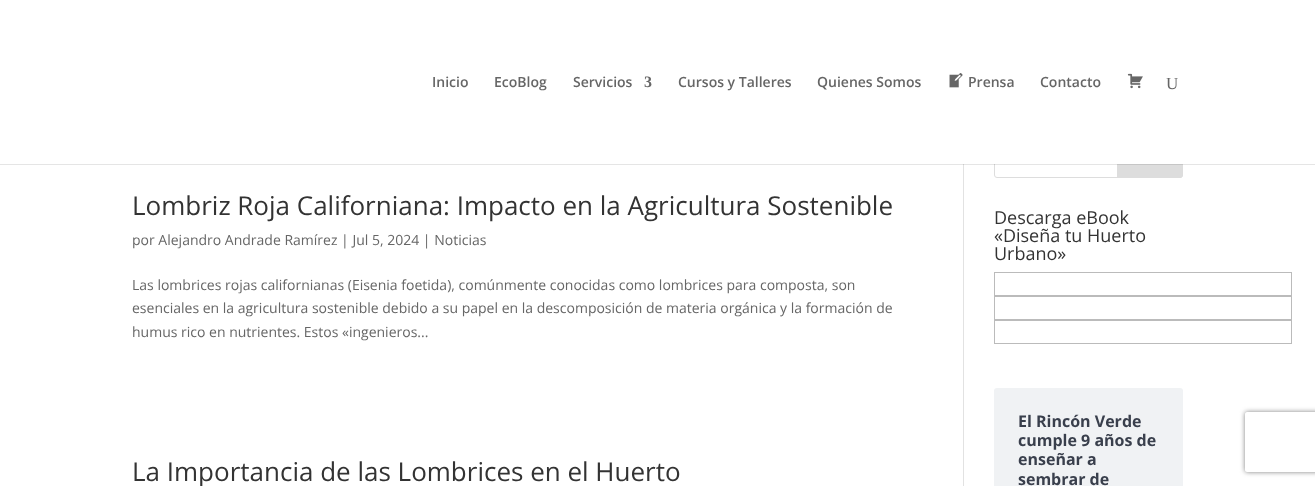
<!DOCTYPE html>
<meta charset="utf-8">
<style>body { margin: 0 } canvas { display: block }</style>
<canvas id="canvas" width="1315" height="486"></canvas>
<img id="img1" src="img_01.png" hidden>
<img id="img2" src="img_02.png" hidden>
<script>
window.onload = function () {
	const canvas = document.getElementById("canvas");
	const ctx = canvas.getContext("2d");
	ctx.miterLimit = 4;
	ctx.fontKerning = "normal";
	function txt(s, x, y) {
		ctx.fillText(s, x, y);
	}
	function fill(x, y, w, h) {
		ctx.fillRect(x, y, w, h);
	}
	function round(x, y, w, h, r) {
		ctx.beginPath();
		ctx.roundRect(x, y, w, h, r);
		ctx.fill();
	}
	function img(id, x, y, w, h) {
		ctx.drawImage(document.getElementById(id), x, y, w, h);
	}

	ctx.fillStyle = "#FFFFFF";
	fill(0, 0, 1315, 486);
	ctx.fillStyle = "#E2E2E2";
	fill(963, 164, 1, 322);
	ctx.beginPath();
	ctx.roundRect(994.5, 138.5, 188, 39, 2.5);
	ctx.strokeStyle = "#DDDDDD";
	ctx.stroke();
	ctx.fillStyle = "#DDDDDD";
	ctx.beginPath();
	ctx.roundRect(1117.5, 138.5, 65, 39, [0, 2.5, 2.5, 0]);
	ctx.fill();
	ctx.stroke();
	ctx.fillStyle = "rgba(0, 0, 0, 0.1)";
	fill(0, 164, 1315, 1);
	ctx.fillStyle = "#FFFFFF";
	fill(994, 138, 189, 26);
	img("img1", 949, 73, 14, 15);
	img("img2", 1127, 73, 16, 16);
	ctx.strokeStyle = "#BBBBBB";
	ctx.strokeRect(994.5, 272.5, 297, 23);
	ctx.strokeRect(994.5, 296.5, 297, 23);
	ctx.strokeRect(994.5, 320.5, 297, 23);
	ctx.fillStyle = "#F0F2F4";
	round(994, 388, 189, 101, 3);
	ctx.save();
	ctx.beginPath();
	ctx.moveTo(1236, 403);
	ctx.lineTo(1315, 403);
	ctx.lineTo(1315, 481);
	ctx.lineTo(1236, 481);
	ctx.closePath();
	ctx.moveTo(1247, 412);
	ctx.lineTo(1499, 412);
	ctx.bezierCurveTo(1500, 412, 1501, 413, 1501, 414);
	ctx.lineTo(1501, 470);
	ctx.bezierCurveTo(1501, 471, 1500, 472, 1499, 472);
	ctx.lineTo(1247, 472);
	ctx.bezierCurveTo(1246, 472, 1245, 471, 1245, 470);
	ctx.lineTo(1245, 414);
	ctx.bezierCurveTo(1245, 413, 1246, 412, 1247, 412);
	ctx.closePath();
	ctx.clip("evenodd");
	ctx.fillStyle = "#808080";
	ctx.filter = "blur(2.5px)";
	ctx.beginPath();
	ctx.roundRect(1245, 412, 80, 60, 2);
	ctx.fill();
	ctx.filter = "none";
	ctx.restore();
	ctx.font = "600 14px Open Sans";
	ctx.fillStyle = "#666666";
	txt("Inicio", 432, 87);
	txt("EcoBlog", 494, 87);
	txt("Servicios", 573, 87);
	ctx.font = "bold 16px Liberation Serif";
	txt("3", 644, 87);
	ctx.font = "600 14px Open Sans";
	txt("Cursos y Talleres", 678, 87);
	txt("Quienes Somos", 817, 87);
	txt("Prensa", 968, 87);
	txt("Contacto", 1040, 87);
	ctx.font = "17px Liberation Serif";
	txt("U", 1166, 89);
	ctx.font = "26px Open Sans";
	ctx.fillStyle = "#333333";
	txt("Lombriz Roja Californiana: Impacto en la Agricultura Sostenible", 132, 215);
	ctx.font = "14px Open Sans";
	ctx.fillStyle = "#666666";
	txt("por Alejandro Andrade Ramírez | Jul 5, 2024 | Noticias", 132, 245);
	txt("Las lombrices rojas californianas (Eisenia foetida), comúnmente conocidas como lombrices para composta, son", 132, 290);
	txt("esenciales en la agricultura sostenible debido a su papel en la descomposición de materia orgánica y la formación de", 132, 313);
	txt("humus rico en nutrientes. Estos «ingenieros...", 132, 337);
	ctx.font = "26px Open Sans";
	ctx.fillStyle = "#333333";
	txt("La Importancia de las Lombrices en el Huerto", 132, 481);
	ctx.font = "18px Open Sans";
	txt("Descarga eBook", 994, 224);
	txt("«Diseña tu Huerto", 994, 242);
	txt("Urbano»", 994, 260);
	ctx.font = "bold 16px Open Sans";
	ctx.fillStyle = "#393F4C";
	txt("El Rincón Verde", 1018, 427);
	txt("cumple 9 años de", 1018, 446);
	txt("enseñar a", 1018, 465);
	txt("sembrar de", 1018, 485);
};
</script>
